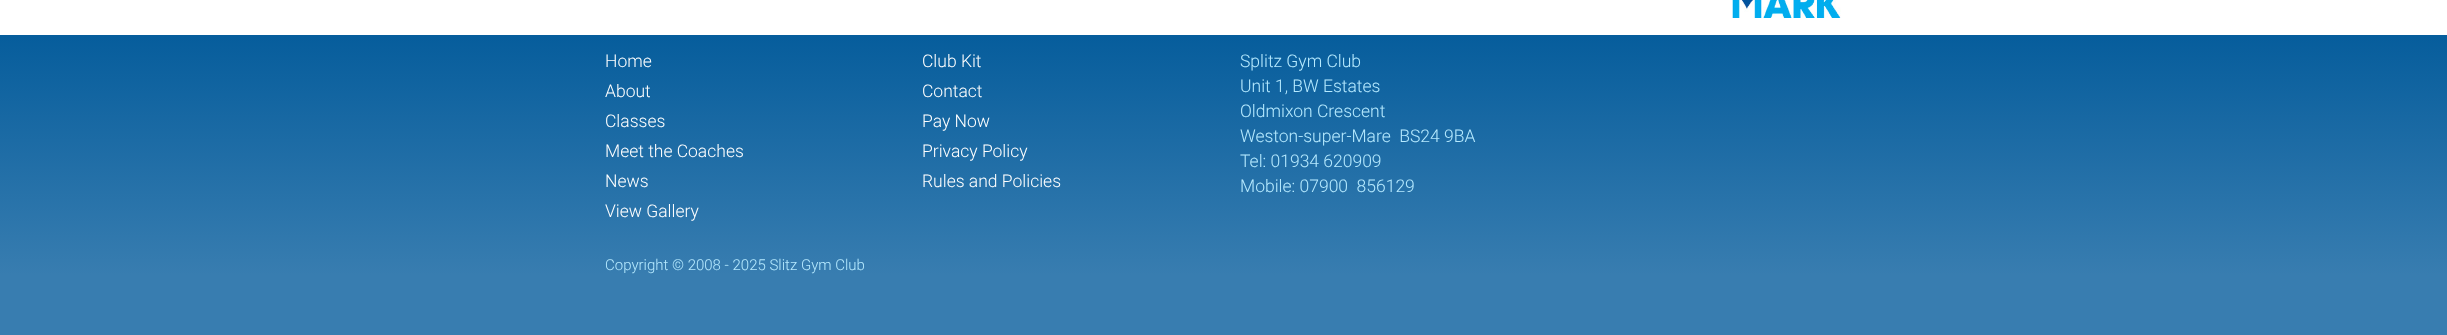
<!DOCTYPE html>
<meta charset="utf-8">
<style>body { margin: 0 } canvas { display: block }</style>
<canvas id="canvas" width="2447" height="335"></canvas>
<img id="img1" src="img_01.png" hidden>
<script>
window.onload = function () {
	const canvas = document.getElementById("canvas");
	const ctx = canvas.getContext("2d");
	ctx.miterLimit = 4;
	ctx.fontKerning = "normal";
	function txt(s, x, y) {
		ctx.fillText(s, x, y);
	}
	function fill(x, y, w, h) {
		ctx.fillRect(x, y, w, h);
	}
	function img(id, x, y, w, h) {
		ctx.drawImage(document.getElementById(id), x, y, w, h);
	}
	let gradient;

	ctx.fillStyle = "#FFFFFF";
	fill(0, 0, 2447, 335);
	img("img1", 1732, 0, 109, 18);
	gradient = ctx.createLinearGradient(1224, 35, 1224, 335);
	gradient.addColorStop(0, "#065D9C");
	gradient.addColorStop(0.8, "#387DB0");
	ctx.fillStyle = gradient;
	fill(0, 35, 2447, 300);
	ctx.font = "300 17.5px Roboto";
	ctx.fillStyle = "#FFFFFF";
	txt("Home", 605, 67);
	txt("About", 605, 97);
	txt("Classes", 605, 127);
	txt("Meet the Coaches", 605, 157);
	txt("News", 605, 187);
	txt("View Gallery", 605, 217);
	txt("Club Kit", 922, 67);
	txt("Contact", 922, 97);
	txt("Pay Now", 922, 127);
	txt("Privacy Policy", 922, 157);
	txt("Rules and Policies", 922, 187);
	ctx.fillStyle = "#B6EAFF";
	txt("Splitz Gym Club", 1240, 67);
	txt("Unit 1, BW Estates", 1240, 92);
	txt("Oldmixon Crescent", 1240, 117);
	txt("Weston-super-Mare  BS24 9BA", 1240, 142);
	txt("Tel: 01934 620909", 1240, 167);
	txt("Mobile: 07900  856129", 1240, 192);
	ctx.font = "300 15px Roboto";
	txt("Copyright © 2008 - 2025 Slitz Gym Club", 605, 270);
};
</script>
